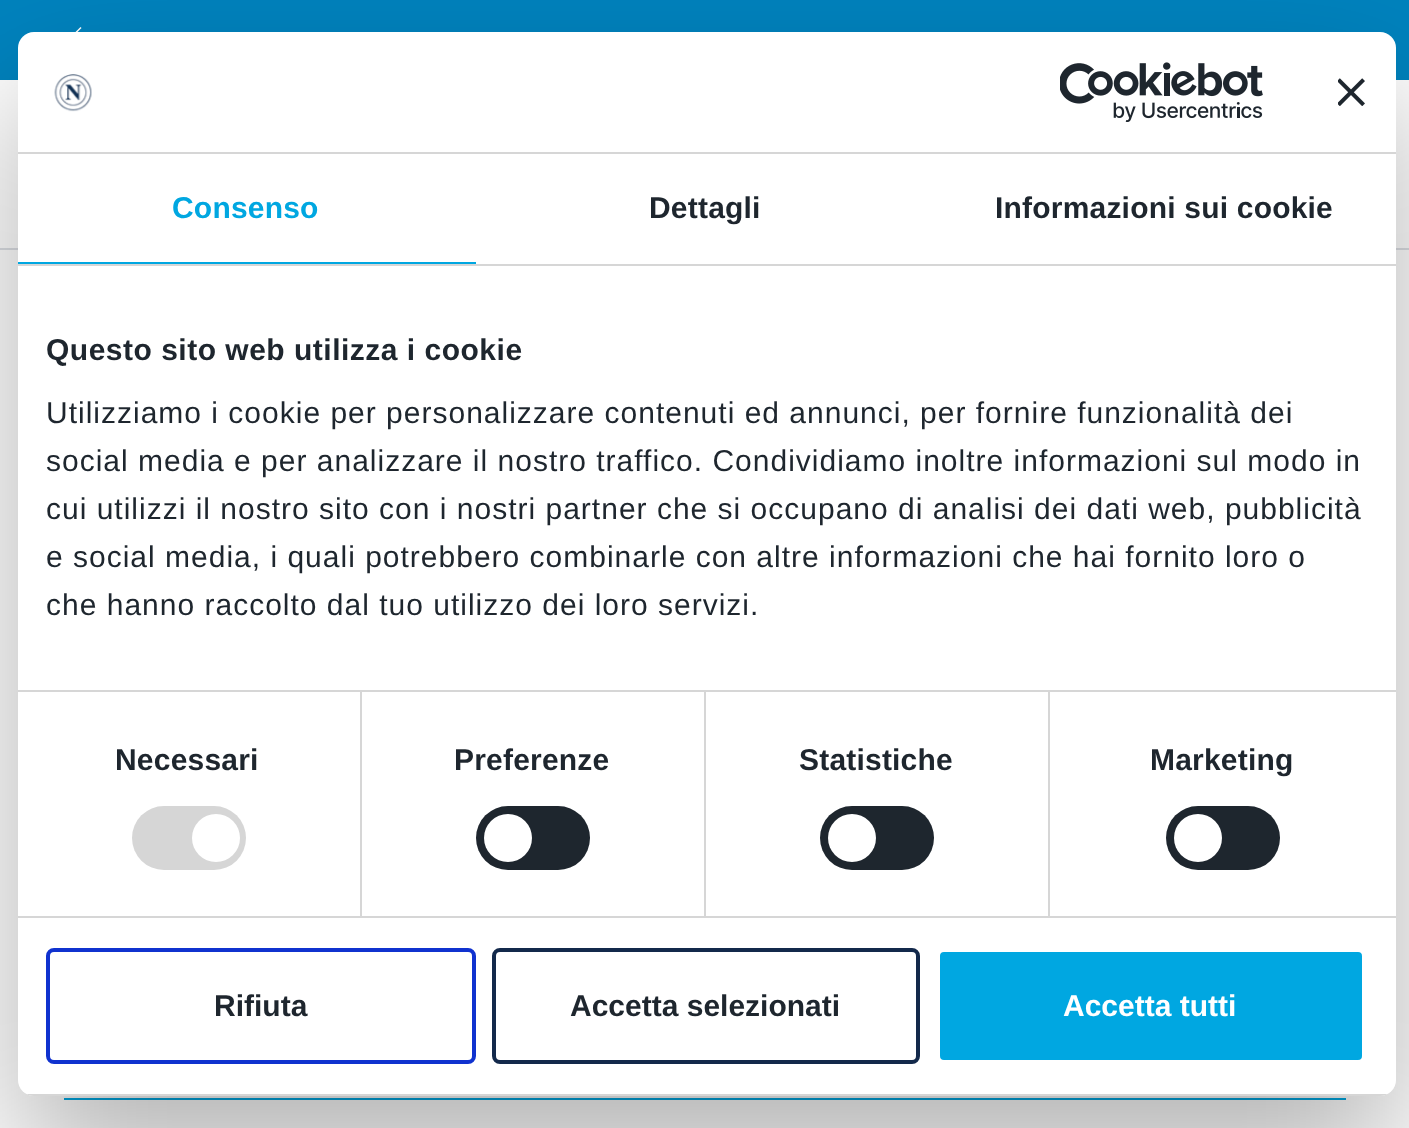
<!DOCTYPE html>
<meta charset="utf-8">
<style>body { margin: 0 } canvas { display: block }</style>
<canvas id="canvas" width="1409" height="1128"></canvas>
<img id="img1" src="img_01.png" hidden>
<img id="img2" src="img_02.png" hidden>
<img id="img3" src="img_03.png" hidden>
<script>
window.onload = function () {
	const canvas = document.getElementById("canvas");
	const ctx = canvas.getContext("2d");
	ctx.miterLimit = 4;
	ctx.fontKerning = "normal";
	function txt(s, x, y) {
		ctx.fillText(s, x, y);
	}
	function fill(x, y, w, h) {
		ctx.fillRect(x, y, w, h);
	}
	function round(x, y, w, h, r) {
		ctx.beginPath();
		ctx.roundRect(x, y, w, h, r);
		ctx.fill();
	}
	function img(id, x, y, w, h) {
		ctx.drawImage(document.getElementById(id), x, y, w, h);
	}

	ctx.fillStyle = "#FFFFFF";
	fill(0, 0, 1409, 1128);
	ctx.fillStyle = "#0083BE";
	fill(0, 0, 1409, 80);
	ctx.beginPath();
	ctx.moveTo(80.5, 28);
	ctx.lineTo(68.5, 40);
	ctx.lineTo(80.5, 52);
	ctx.strokeStyle = "#FFFFFF";
	ctx.lineWidth = 1.5;
	ctx.lineCap = "square";
	ctx.stroke();
	ctx.fillStyle = "#DCDFE4";
	fill(0, 248, 1409, 2);
	ctx.fillStyle = "#00A7E1";
	fill(64, 1098, 1282, 2);
	ctx.fillStyle = "rgba(0, 0, 0, 0.3)";
	ctx.filter = "blur(68px)";
	ctx.beginPath();
	ctx.roundRect(18, 96, 1378, 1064, 16);
	ctx.fill();
	ctx.filter = "none";
	ctx.fillStyle = "#FFFFFF";
	round(18, 32, 1378, 1064, 16);
	ctx.fillStyle = "#D6D6D6";
	fill(18, 152, 1378, 2);
	img("img1", 54, 74, 38, 38);
	img("img2", 1060, 62, 203, 60);
	img("img3", 1338, 78, 27, 28);
	fill(18, 264, 1378, 2);
	ctx.fillStyle = "#00A7E1";
	fill(18, 262, 458, 2);
	ctx.fillStyle = "#D6D6D6";
	fill(18, 690, 1378, 2);
	fill(18, 916, 1378, 2);
	fill(360, 692, 2, 224);
	round(132, 806, 114, 64, 32);
	ctx.fillStyle = "#FFFFFF";
	ctx.beginPath();
	ctx.arc(216, 838, 24, 0, Math.PI * 2);
	ctx.fill();
	ctx.fillStyle = "#D6D6D6";
	fill(704, 692, 2, 224);
	ctx.fillStyle = "#1E262E";
	round(476, 806, 114, 64, 32);
	ctx.fillStyle = "#FFFFFF";
	ctx.beginPath();
	ctx.arc(508, 838, 24, 0, Math.PI * 2);
	ctx.fill();
	ctx.fillStyle = "#D6D6D6";
	fill(1048, 692, 2, 224);
	ctx.fillStyle = "#1E262E";
	round(820, 806, 114, 64, 32);
	ctx.fillStyle = "#FFFFFF";
	ctx.beginPath();
	ctx.arc(852, 838, 24, 0, Math.PI * 2);
	ctx.fill();
	ctx.fillStyle = "#1E262E";
	round(1166, 806, 114, 64, 32);
	ctx.fillStyle = "#FFFFFF";
	ctx.beginPath();
	ctx.arc(1198, 838, 24, 0, Math.PI * 2);
	ctx.fill();
	ctx.save();
	ctx.beginPath();
	ctx.roundRect(18, 32, 1378, 1064, 16);
	ctx.clip();
	ctx.fillStyle = "#D6D6D6";
	fill(18, 1094, 1378, 2);
	ctx.restore();
	ctx.beginPath();
	ctx.roundRect(48, 950, 426, 112, 6);
	ctx.strokeStyle = "#1032CF";
	ctx.lineWidth = 4;
	ctx.stroke();
	ctx.beginPath();
	ctx.roundRect(494, 950, 424, 112, 6);
	ctx.strokeStyle = "#13294B";
	ctx.stroke();
	ctx.fillStyle = "#00A7E1";
	ctx.beginPath();
	ctx.roundRect(938, 950, 426, 112, 6);
	ctx.fill();
	ctx.strokeStyle = "#FFFFFF";
	ctx.stroke();
	ctx.letterSpacing = "0.2px";
	ctx.font = "bold 30px Liberation Sans";
	txt("Consenso", 172, 218);
	ctx.fillStyle = "#1E262E";
	txt("Dettagli", 649, 218);
	txt("Informazioni sui cookie", 995, 218);
	ctx.letterSpacing = "0.5px";
	txt("Questo sito web utilizza i cookie", 46, 360);
	ctx.letterSpacing = "1px";
	ctx.font = "30px Liberation Sans";
	txt("Utilizziamo i cookie per personalizzare contenuti ed annunci, per fornire funzionalità dei", 46, 423);
	txt("social media e per analizzare il nostro traffico. Condividiamo inoltre informazioni sul modo in", 46, 471);
	txt("cui utilizzi il nostro sito con i nostri partner che si occupano di analisi dei dati web, pubblicità", 46, 519);
	txt("e social media, i quali potrebbero combinarle con altre informazioni che hai fornito loro o", 46, 567);
	txt("che hanno raccolto dal tuo utilizzo dei loro servizi.", 46, 615);
	ctx.letterSpacing = "0.2px";
	ctx.font = "bold 30px Liberation Sans";
	txt("Necessari", 115, 770);
	txt("Preferenze", 454, 770);
	txt("Statistiche", 799, 770);
	txt("Marketing", 1150, 770);
	ctx.letterSpacing = "0px";
	txt("Rifiuta", 214, 1016);
	txt("Accetta selezionati", 570, 1016);
	ctx.fillStyle = "#FFFFFF";
	txt("Accetta tutti", 1063, 1016);
};
</script>
